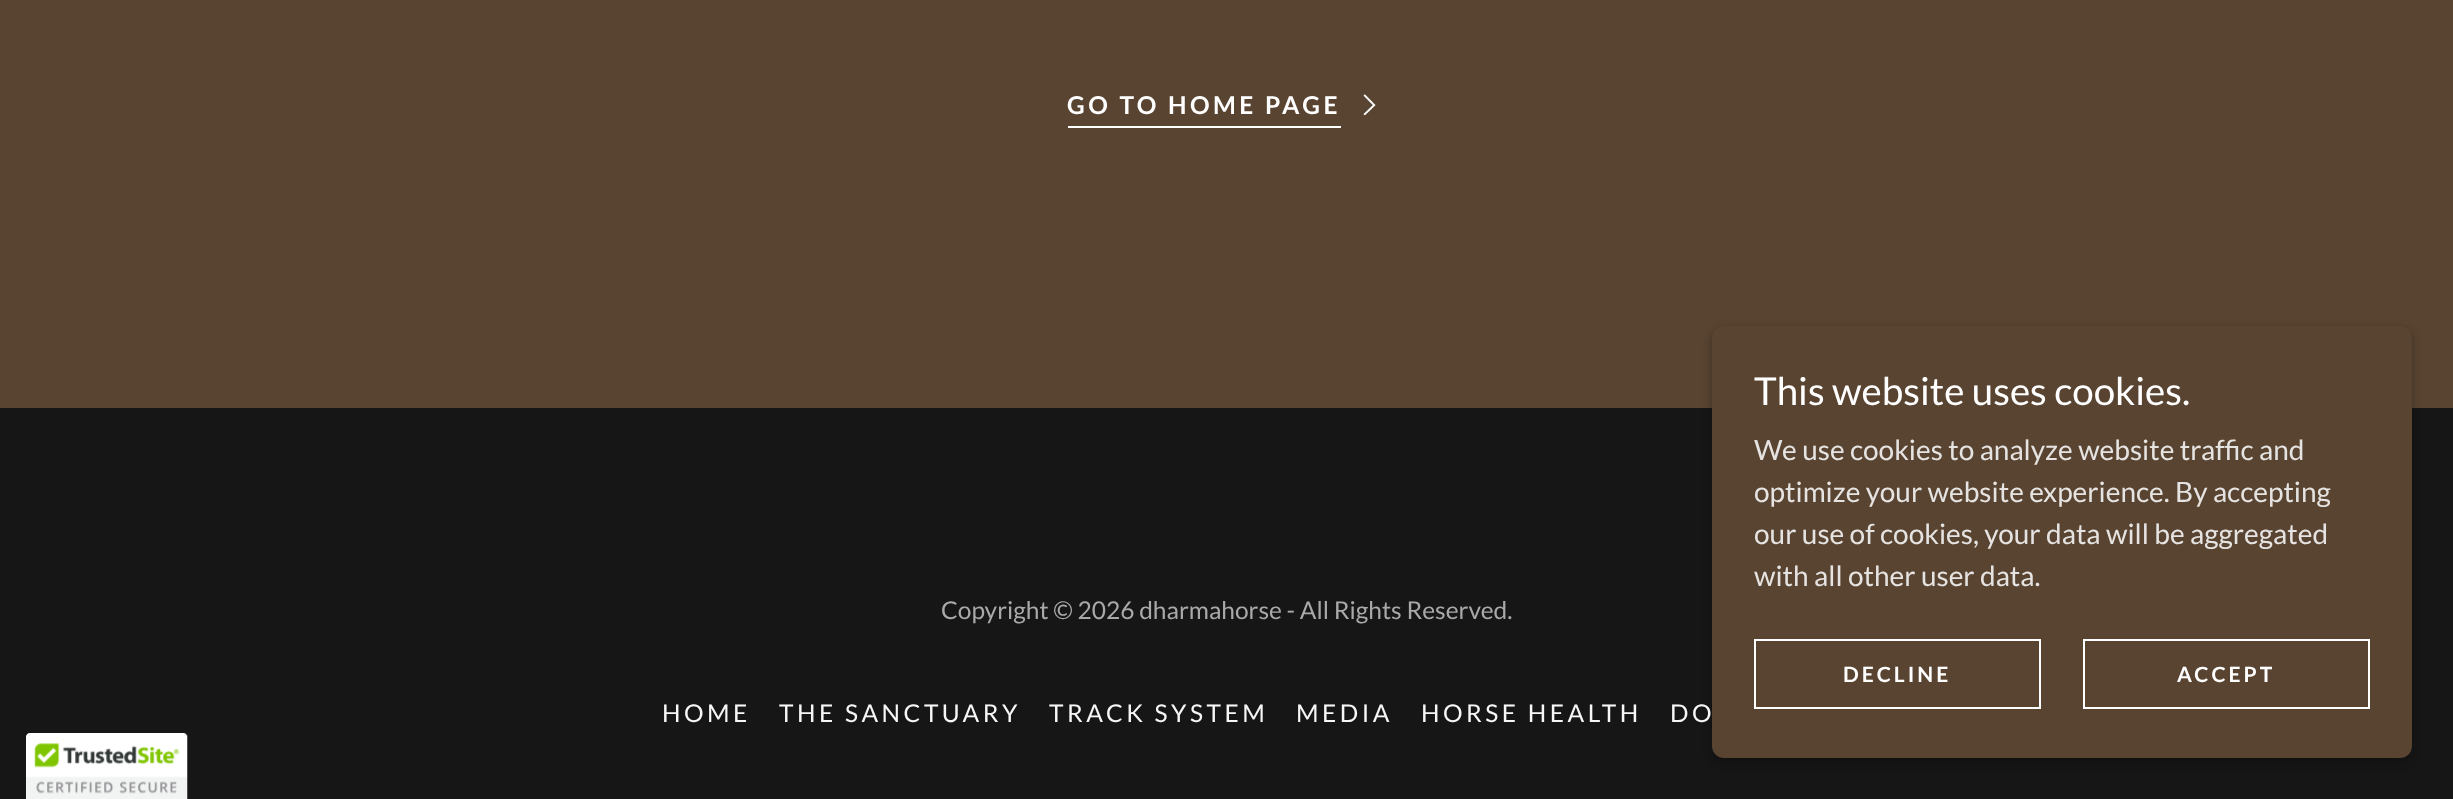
<!DOCTYPE html>
<meta charset="utf-8">
<style>body { margin: 0 } canvas { display: block }</style>
<canvas id="canvas" width="2453" height="799"></canvas>
<img id="img1" src="img_01.png" hidden>
<img id="img2" src="img_02.png" hidden>
<script>
window.onload = function () {
	const canvas = document.getElementById("canvas");
	const ctx = canvas.getContext("2d");
	ctx.miterLimit = 4;
	ctx.fontKerning = "normal";
	function txt(s, x, y) {
		ctx.fillText(s, x, y);
	}
	function fill(x, y, w, h) {
		ctx.fillRect(x, y, w, h);
	}
	function round(x, y, w, h, r) {
		ctx.beginPath();
		ctx.roundRect(x, y, w, h, r);
		ctx.fill();
	}
	function img(id, x, y, w, h) {
		ctx.drawImage(document.getElementById(id), x, y, w, h);
	}

	ctx.fillStyle = "#161616";
	fill(0, 0, 2453, 799);
	ctx.fillStyle = "#594431";
	fill(0, 0, 2453, 408);
	ctx.fillStyle = "#FFFFFF";
	fill(1068, 126, 273, 2);
	img("img1", 1363, 94, 13, 22);
	ctx.fillStyle = "rgba(0, 0, 0, 0.3)";
	ctx.filter = "blur(5px)";
	ctx.beginPath();
	ctx.roundRect(1712, 329, 700, 432, 12);
	ctx.fill();
	ctx.filter = "none";
	ctx.fillStyle = "#594431";
	round(1712, 326, 700, 432, 12);
	ctx.strokeStyle = "#FFFFFF";
	ctx.lineWidth = 2;
	ctx.strokeRect(1755, 640, 285, 68);
	ctx.strokeRect(2084, 640, 285, 68);
	ctx.fillStyle = "#FFFFFF";
	ctx.beginPath();
	ctx.moveTo(30, 733);
	ctx.lineTo(183, 733);
	ctx.bezierCurveTo(185, 733, 187, 735, 187, 737);
	ctx.lineTo(187, 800);
	ctx.lineTo(26, 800);
	ctx.lineTo(26, 737);
	ctx.bezierCurveTo(26, 735, 28, 733, 30, 733);
	ctx.closePath();
	ctx.fill();
	img("img2", 26, 733, 162, 66);
	ctx.letterSpacing = "3.5px";
	ctx.font = "bold 24.5px Lato";
	txt("GO TO HOME PAGE", 1067, 114);
	ctx.letterSpacing = "0px";
	ctx.font = "24.5px Lato";
	ctx.fillStyle = "#A9A9A9";
	txt("Copyright © 2026 dharmahorse - All Rights Reserved.", 941, 619);
	ctx.letterSpacing = "3.5px";
	ctx.fillStyle = "#F7F7F7";
	txt("HOME", 662, 722);
	txt("THE SANCTUARY", 779, 722);
	txt("TRACK SYSTEM", 1049, 722);
	txt("MEDIA", 1296, 722);
	txt("HORSE HEALTH", 1421, 722);
	txt("DO", 1670, 722);
	ctx.letterSpacing = "0px";
	ctx.font = "38.5px Lato";
	ctx.fillStyle = "#FFFFFF";
	txt("This website uses cookies.", 1754, 405);
	ctx.font = "28px Lato";
	ctx.fillStyle = "#E6E4E2";
	txt("We use cookies to analyze website traffic and", 1754, 460);
	txt("optimize your website experience. By accepting", 1754, 502);
	txt("our use of cookies, your data will be aggregated", 1754, 544);
	txt("with all other user data.", 1754, 586);
	ctx.letterSpacing = "3px";
	ctx.font = "bold 21px Lato";
	ctx.fillStyle = "#FFFFFF";
	txt("DECLINE", 1843, 682);
	txt("ACCEPT", 2177, 682);
};
</script>
